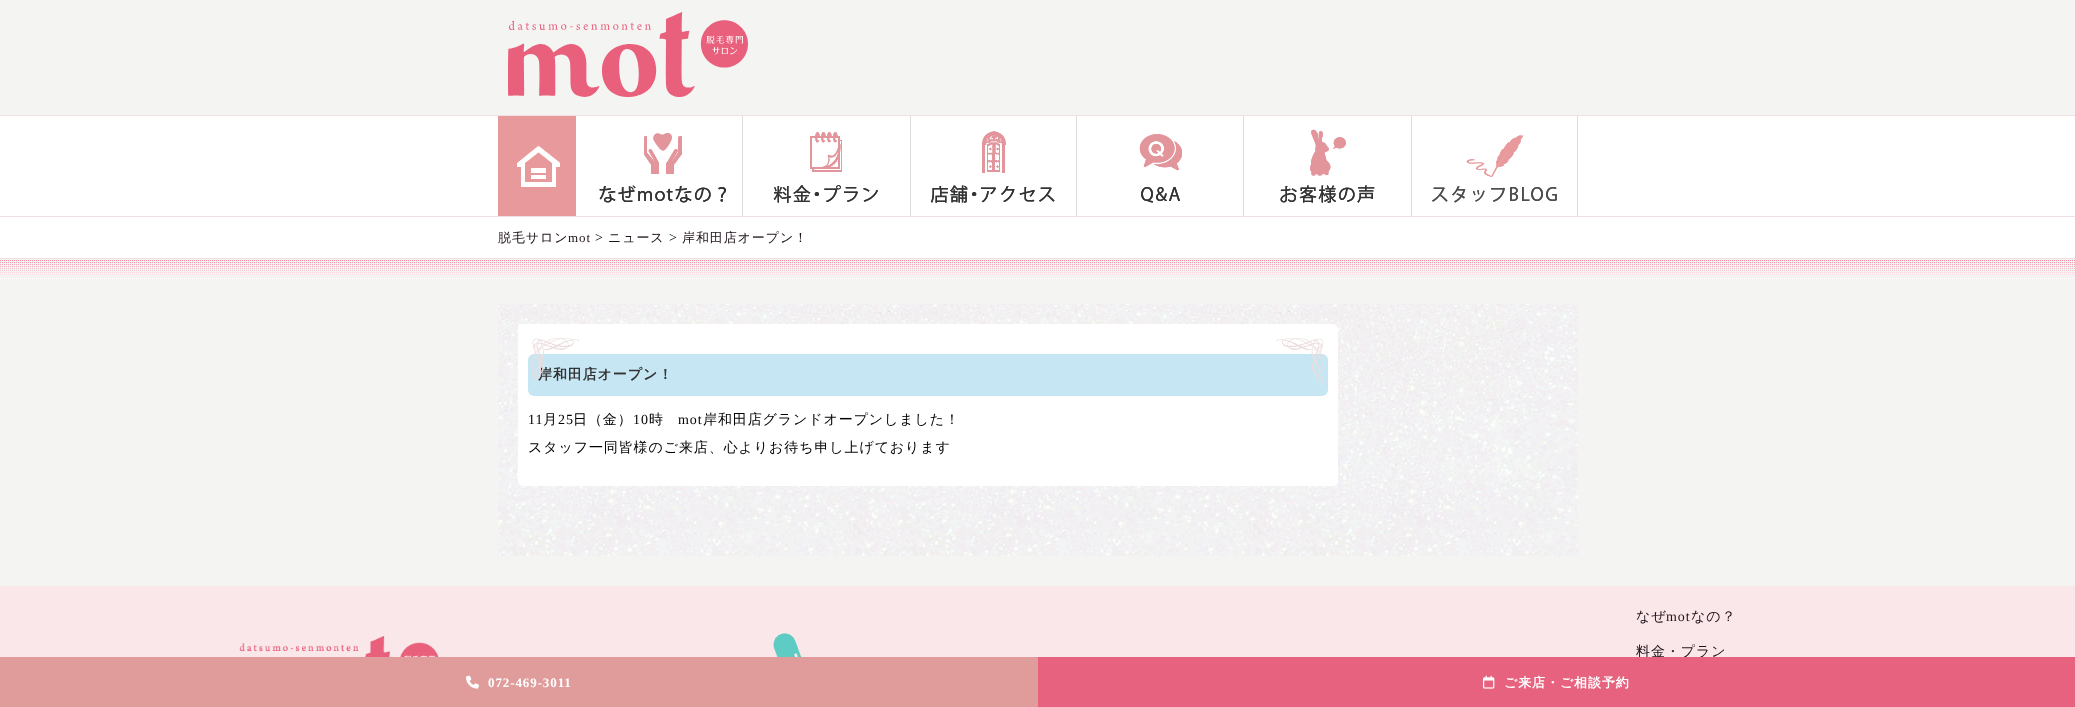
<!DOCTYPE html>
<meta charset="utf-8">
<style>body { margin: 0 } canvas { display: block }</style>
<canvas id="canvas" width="2075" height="707"></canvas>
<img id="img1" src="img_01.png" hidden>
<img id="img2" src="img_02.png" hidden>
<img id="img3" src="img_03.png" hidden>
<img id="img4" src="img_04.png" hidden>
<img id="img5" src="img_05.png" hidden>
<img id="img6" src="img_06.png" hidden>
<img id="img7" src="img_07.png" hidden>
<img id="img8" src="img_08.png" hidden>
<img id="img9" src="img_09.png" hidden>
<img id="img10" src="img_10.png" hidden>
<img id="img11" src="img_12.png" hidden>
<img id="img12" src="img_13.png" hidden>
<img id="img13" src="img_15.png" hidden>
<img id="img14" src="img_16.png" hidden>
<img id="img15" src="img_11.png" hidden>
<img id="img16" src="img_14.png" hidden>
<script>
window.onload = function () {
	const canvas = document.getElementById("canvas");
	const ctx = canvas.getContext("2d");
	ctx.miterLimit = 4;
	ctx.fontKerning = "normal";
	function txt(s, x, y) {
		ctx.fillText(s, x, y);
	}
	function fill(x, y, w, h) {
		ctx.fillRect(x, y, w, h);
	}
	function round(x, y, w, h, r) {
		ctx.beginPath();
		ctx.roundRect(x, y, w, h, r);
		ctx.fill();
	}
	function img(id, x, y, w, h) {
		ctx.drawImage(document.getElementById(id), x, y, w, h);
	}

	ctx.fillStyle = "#F4F4F3";
	fill(0, 0, 2075, 707);
	img("img1", 508, 12, 240, 85);
	ctx.fillStyle = "#FFFFFF";
	fill(0, 116, 2075, 100);
	ctx.fillStyle = "#F1DFE2";
	fill(0, 115, 2075, 1);
	fill(0, 216, 2075, 1);
	img("img2", 498, 116, 1080, 100);
	img("img3", 599, 133, 127, 70);
	img("img4", 773, 132, 105, 71);
	img("img5", 931, 131, 124, 72);
	img("img6", 1139, 134, 43, 69);
	img("img7", 1280, 129, 95, 74);
	img("img8", 1432, 135, 125, 68);
	ctx.fillStyle = "#FFFFFF";
	fill(0, 217, 2075, 41);
	ctx.fillStyle = "#F1DFE2";
	fill(0, 258, 2075, 1);
	img("img9", 0, 260, 2075, 19);
	img("img10", 498, 304, 1080, 252);
	ctx.fillStyle = "#FFFFFF";
	fill(518, 324, 5, 5);
	round(518, 324, 820, 162, 5);
	ctx.fillStyle = "#C6E6F3";
	round(528, 354, 800, 42, 6);
	img("img11", 1276, 338, 48, 48);
	ctx.fillStyle = "#DF9C9B";
	fill(0, 657, 1038, 50);
	img("img12", 466, 675, 13, 14);
	ctx.fillStyle = "#FAE7E9";
	fill(0, 586, 2075, 71);
	img("img13", 239, 636, 200, 21);
	img("img14", 773, 633, 29, 24);
	ctx.letterSpacing = "0.9px";
	ctx.font = "500 13px WenQuanYi Zen Hei";
	ctx.fillStyle = "#1F131B";
	txt("脱毛サロン", 498, 242);
	ctx.font = "13px Liberation Serif";
	txt("mot", 568, 242);
	ctx.font = "14px Liberation Serif";
	ctx.fillStyle = "#000000";
	txt(">", 595, 242);
	ctx.font = "500 13px WenQuanYi Zen Hei";
	ctx.fillStyle = "#1F131B";
	txt("ニュース", 608, 242);
	ctx.font = "14px Liberation Serif";
	ctx.fillStyle = "#000000";
	txt(">", 669, 242);
	ctx.font = "500 13px WenQuanYi Zen Hei";
	ctx.fillStyle = "#1F131B";
	txt("岸和田店オープン！", 682, 242);
	ctx.font = "bold 14px WenQuanYi Zen Hei";
	ctx.fillStyle = "#333333";
	txt("岸和田店オープン！", 538, 379);
	img("img15", 531, 338, 48, 47);
	ctx.font = "14px Liberation Serif";
	ctx.fillStyle = "#000000";
	txt("11", 528, 424);
	ctx.font = "500 14px WenQuanYi Zen Hei";
	txt("月", 543, 424);
	ctx.font = "14px Liberation Serif";
	txt("25", 558, 424);
	ctx.font = "500 14px WenQuanYi Zen Hei";
	txt("日（金）", 573, 424);
	ctx.font = "14px Liberation Serif";
	txt("10", 633, 424);
	ctx.font = "500 14px WenQuanYi Zen Hei";
	txt("時", 649, 424);
	ctx.font = "14px Liberation Serif";
	txt("mot", 678, 424);
	ctx.font = "500 14px WenQuanYi Zen Hei";
	txt("岸和田店グランドオープンしました！", 703, 424);
	txt("スタッフ一同皆様のご来店、心よりお待ち申し上げております", 528, 452);
	ctx.font = "bold 13px Liberation Serif";
	ctx.fillStyle = "#FFFFFF";
	txt("072-469-3011", 488, 687);
	ctx.font = "500 14px WenQuanYi Zen Hei";
	ctx.fillStyle = "#1F131B";
	txt("なぜ", 1636, 621);
	ctx.font = "14px Liberation Serif";
	txt("mot", 1666, 621);
	ctx.font = "500 14px WenQuanYi Zen Hei";
	txt("なの？", 1691, 621);
	txt("料金・プラン", 1636, 656);
	ctx.fillStyle = "#E6627E";
	fill(1038, 657, 1037, 50);
	ctx.font = "bold 13px WenQuanYi Zen Hei";
	ctx.fillStyle = "#FFFFFF";
	txt("ご来店・ご相談予約", 1504, 687);
	img("img16", 1483, 675, 12, 14);
};
</script>
